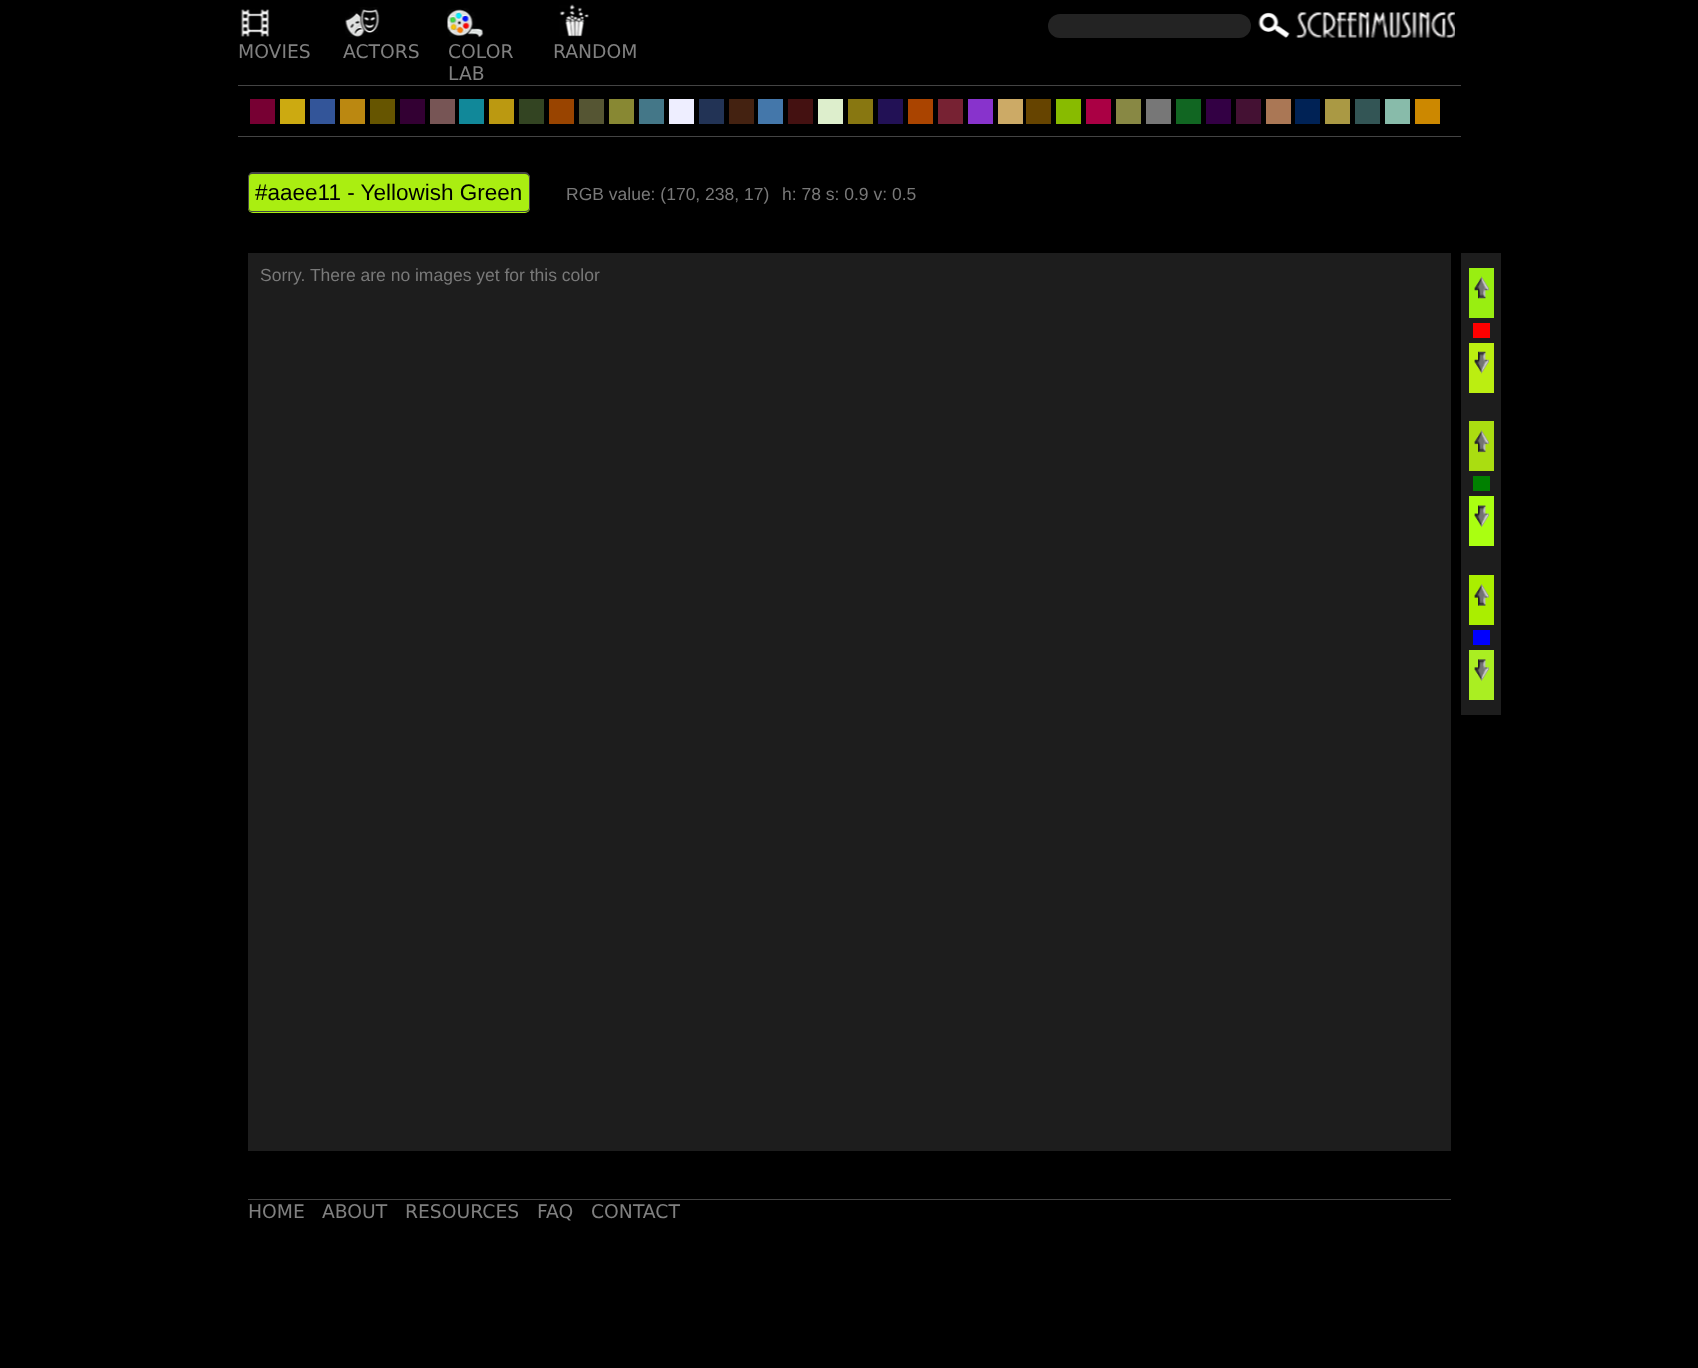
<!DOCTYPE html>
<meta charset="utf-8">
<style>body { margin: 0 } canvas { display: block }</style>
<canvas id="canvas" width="1698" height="1368"></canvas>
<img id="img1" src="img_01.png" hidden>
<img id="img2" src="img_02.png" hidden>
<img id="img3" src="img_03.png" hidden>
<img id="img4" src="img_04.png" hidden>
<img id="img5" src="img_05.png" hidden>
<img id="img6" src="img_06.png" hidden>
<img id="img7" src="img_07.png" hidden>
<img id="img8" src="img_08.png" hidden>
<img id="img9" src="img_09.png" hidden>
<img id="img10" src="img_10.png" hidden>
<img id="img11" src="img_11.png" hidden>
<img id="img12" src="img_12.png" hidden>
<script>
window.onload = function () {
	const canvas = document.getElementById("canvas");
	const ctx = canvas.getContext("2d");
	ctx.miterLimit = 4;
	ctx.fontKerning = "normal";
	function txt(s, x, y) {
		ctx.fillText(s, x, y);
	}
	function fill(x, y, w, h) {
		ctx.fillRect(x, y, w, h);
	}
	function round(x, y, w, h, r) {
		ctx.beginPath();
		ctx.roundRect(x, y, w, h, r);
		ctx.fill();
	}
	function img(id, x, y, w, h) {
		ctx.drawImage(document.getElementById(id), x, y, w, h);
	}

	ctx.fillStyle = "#000000";
	fill(0, 0, 1698, 1368);
	ctx.fillStyle = "#444444";
	fill(238, 85, 1223, 1);
	ctx.fillStyle = "#232323";
	round(1048, 14, 203, 24, 12);
	img("img1", 1258, 12, 32, 26);
	img("img2", 1295, 12, 160, 26);
	img("img3", 240, 9, 30, 28);
	img("img4", 345, 7, 35, 30);
	img("img5", 447, 8, 37, 30);
	img("img6", 559, 4, 30, 33);
	ctx.fillStyle = "#444444";
	fill(238, 136, 1223, 1);
	ctx.fillStyle = "#770033";
	fill(250, 99, 25, 25);
	ctx.fillStyle = "#CCAA11";
	fill(280, 99, 25, 25);
	ctx.fillStyle = "#335599";
	fill(310, 99, 25, 25);
	ctx.fillStyle = "#BB8811";
	fill(340, 99, 25, 25);
	ctx.fillStyle = "#665500";
	fill(370, 99, 25, 25);
	ctx.fillStyle = "#330033";
	fill(400, 99, 25, 25);
	ctx.fillStyle = "#775555";
	fill(430, 99, 25, 25);
	ctx.fillStyle = "#118899";
	fill(459, 99, 25, 25);
	ctx.fillStyle = "#BB9911";
	fill(489, 99, 25, 25);
	ctx.fillStyle = "#334422";
	fill(519, 99, 25, 25);
	ctx.fillStyle = "#994400";
	fill(549, 99, 25, 25);
	ctx.fillStyle = "#555533";
	fill(579, 99, 25, 25);
	ctx.fillStyle = "#888833";
	fill(609, 99, 25, 25);
	ctx.fillStyle = "#447788";
	fill(639, 99, 25, 25);
	ctx.fillStyle = "#EEEEFF";
	fill(669, 99, 25, 25);
	ctx.fillStyle = "#223355";
	fill(699, 99, 25, 25);
	ctx.fillStyle = "#442211";
	fill(729, 99, 25, 25);
	ctx.fillStyle = "#4477AA";
	fill(758, 99, 25, 25);
	ctx.fillStyle = "#441111";
	fill(788, 99, 25, 25);
	ctx.fillStyle = "#DDEECC";
	fill(818, 99, 25, 25);
	ctx.fillStyle = "#887711";
	fill(848, 99, 25, 25);
	ctx.fillStyle = "#221155";
	fill(878, 99, 25, 25);
	ctx.fillStyle = "#AA4400";
	fill(908, 99, 25, 25);
	ctx.fillStyle = "#772233";
	fill(938, 99, 25, 25);
	ctx.fillStyle = "#8833CC";
	fill(968, 99, 25, 25);
	ctx.fillStyle = "#CCAA66";
	fill(998, 99, 25, 25);
	ctx.fillStyle = "#664400";
	fill(1026, 99, 25, 25);
	ctx.fillStyle = "#88BB00";
	fill(1056, 99, 25, 25);
	ctx.fillStyle = "#AA0044";
	fill(1086, 99, 25, 25);
	ctx.fillStyle = "#888844";
	fill(1116, 99, 25, 25);
	ctx.fillStyle = "#777777";
	fill(1146, 99, 25, 25);
	ctx.fillStyle = "#116622";
	fill(1176, 99, 25, 25);
	ctx.fillStyle = "#330044";
	fill(1206, 99, 25, 25);
	ctx.fillStyle = "#441133";
	fill(1236, 99, 25, 25);
	ctx.fillStyle = "#AA7755";
	fill(1266, 99, 25, 25);
	ctx.fillStyle = "#002255";
	fill(1295, 99, 25, 25);
	ctx.fillStyle = "#AA9944";
	fill(1325, 99, 25, 25);
	ctx.fillStyle = "#335555";
	fill(1355, 99, 25, 25);
	ctx.fillStyle = "#88BBAA";
	fill(1385, 99, 25, 25);
	ctx.fillStyle = "#CC8800";
	fill(1415, 99, 25, 25);
	ctx.fillStyle = "#AAEE11";
	ctx.beginPath();
	ctx.roundRect(248, 173, 100, 40, [5, 0, 0, 5]);
	ctx.fill();
	ctx.fillStyle = "#444444";
	ctx.beginPath();
	ctx.moveTo(252, 172);
	ctx.lineTo(348, 172);
	ctx.lineTo(348, 212);
	ctx.lineTo(252, 212);
	ctx.bezierCurveTo(250, 212, 248, 210, 248, 208);
	ctx.lineTo(248, 178);
	ctx.bezierCurveTo(248, 175, 250, 172, 252, 172);
	ctx.closePath();
	ctx.moveTo(252, 174);
	ctx.lineTo(348, 174);
	ctx.lineTo(348, 211);
	ctx.lineTo(252, 211);
	ctx.bezierCurveTo(250, 211, 249, 210, 249, 208);
	ctx.lineTo(249, 178);
	ctx.bezierCurveTo(249, 175, 250, 174, 252, 174);
	ctx.closePath();
	ctx.fill("evenodd");
	ctx.fillStyle = "#AAEE11";
	ctx.beginPath();
	ctx.roundRect(348, 173, 182, 40, [0, 5, 5, 0]);
	ctx.fill();
	ctx.fillStyle = "#444444";
	ctx.beginPath();
	ctx.moveTo(348, 172);
	ctx.lineTo(525, 172);
	ctx.bezierCurveTo(528, 172, 530, 175, 530, 178);
	ctx.lineTo(530, 208);
	ctx.bezierCurveTo(530, 210, 528, 212, 525, 212);
	ctx.lineTo(348, 212);
	ctx.closePath();
	ctx.moveTo(348, 174);
	ctx.lineTo(525, 174);
	ctx.bezierCurveTo(527, 174, 529, 175, 529, 178);
	ctx.lineTo(529, 208);
	ctx.bezierCurveTo(529, 210, 527, 211, 525, 211);
	ctx.lineTo(348, 211);
	ctx.closePath();
	ctx.fill("evenodd");
	ctx.fillStyle = "#1D1D1D";
	fill(248, 253, 1203, 898);
	fill(1461, 253, 40, 462);
	ctx.fillStyle = "#99EE11";
	fill(1469, 268, 25, 50);
	img("img7", 1474, 276, 15, 23);
	ctx.fillStyle = "#FF0000";
	fill(1473, 323, 17, 15);
	ctx.fillStyle = "#BBEE11";
	fill(1469, 343, 25, 50);
	img("img8", 1474, 351, 15, 23);
	ctx.fillStyle = "#AADD11";
	fill(1469, 421, 25, 50);
	img("img9", 1474, 430, 15, 23);
	ctx.fillStyle = "#008000";
	fill(1473, 476, 17, 15);
	ctx.fillStyle = "#AAFF11";
	fill(1469, 496, 25, 50);
	img("img10", 1474, 505, 15, 23);
	ctx.fillStyle = "#AAEE00";
	fill(1469, 575, 25, 50);
	img("img11", 1474, 584, 15, 22);
	ctx.fillStyle = "#0000FF";
	fill(1473, 630, 17, 15);
	ctx.fillStyle = "#AAEE22";
	fill(1469, 650, 25, 50);
	img("img12", 1474, 659, 15, 22);
	ctx.fillStyle = "#444444";
	fill(248, 1199, 1203, 1);
	ctx.font = "18.75px DejaVu Sans";
	ctx.fillStyle = "#808080";
	txt("MOVIES", 238, 58);
	txt("ACTORS", 343, 58);
	txt("COLOR", 448, 58);
	txt("LAB", 448, 80);
	txt("RANDOM", 553, 58);
	ctx.font = "22.5px Liberation Sans";
	ctx.fillStyle = "#000000";
	txt("#aaee11 - Yellowish Green", 255, 200);
	ctx.font = "17.5px Liberation Sans";
	ctx.fillStyle = "#797979";
	txt("RGB value: (170, 238, 17)", 566, 200);
	txt("h: 78 s: 0.9 v: 0.5", 782, 200);
	txt("Sorry. There are no images yet for this color", 260, 281);
	ctx.font = "18.75px DejaVu Sans";
	ctx.fillStyle = "#808080";
	txt("HOME", 248, 1218);
	txt("ABOUT", 322, 1218);
	txt("RESOURCES", 405, 1218);
	txt("FAQ", 537, 1218);
	txt("CONTACT", 591, 1218);
};
</script>
